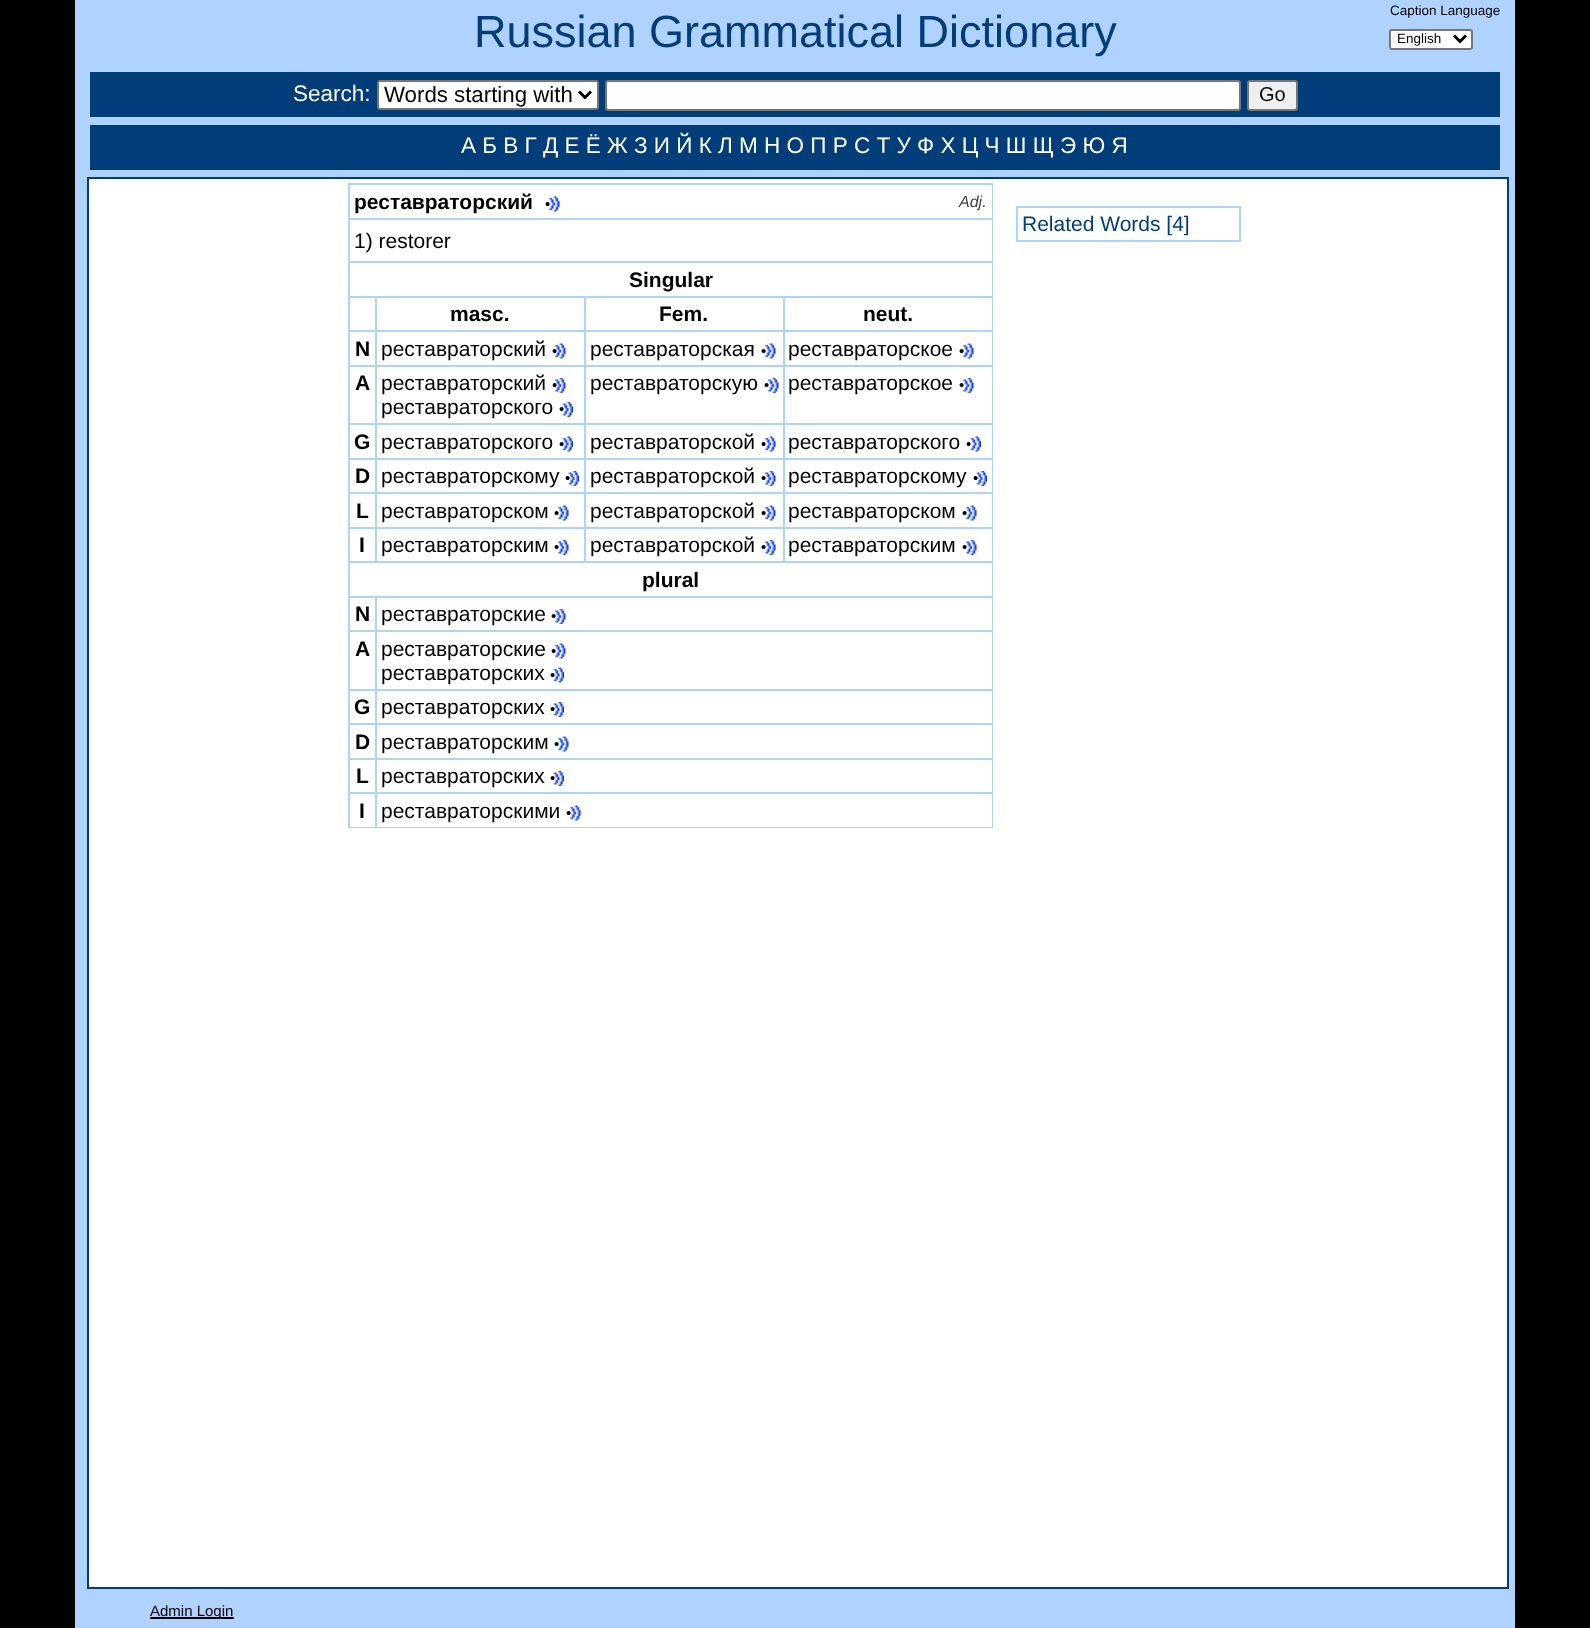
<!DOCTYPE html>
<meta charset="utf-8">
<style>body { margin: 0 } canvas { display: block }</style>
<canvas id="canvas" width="1590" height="1628"></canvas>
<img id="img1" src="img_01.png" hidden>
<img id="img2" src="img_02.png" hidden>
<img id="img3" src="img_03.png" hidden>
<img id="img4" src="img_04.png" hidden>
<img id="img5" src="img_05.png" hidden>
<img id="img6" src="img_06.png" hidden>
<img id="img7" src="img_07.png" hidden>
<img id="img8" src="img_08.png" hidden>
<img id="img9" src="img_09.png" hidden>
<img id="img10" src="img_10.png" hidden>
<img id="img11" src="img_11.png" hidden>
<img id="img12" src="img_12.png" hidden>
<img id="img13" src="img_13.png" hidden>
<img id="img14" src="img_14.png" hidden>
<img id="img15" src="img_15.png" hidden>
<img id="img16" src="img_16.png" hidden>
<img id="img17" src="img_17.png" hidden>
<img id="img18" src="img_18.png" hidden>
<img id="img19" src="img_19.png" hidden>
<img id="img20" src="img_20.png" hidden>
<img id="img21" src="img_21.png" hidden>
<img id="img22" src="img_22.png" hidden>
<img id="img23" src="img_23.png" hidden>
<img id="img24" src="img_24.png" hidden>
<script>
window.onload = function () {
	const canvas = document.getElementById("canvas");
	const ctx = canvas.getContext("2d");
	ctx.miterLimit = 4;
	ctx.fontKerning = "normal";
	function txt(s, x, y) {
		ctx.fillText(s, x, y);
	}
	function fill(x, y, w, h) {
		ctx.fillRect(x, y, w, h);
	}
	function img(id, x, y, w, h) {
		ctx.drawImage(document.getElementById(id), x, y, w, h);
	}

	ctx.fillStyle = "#000000";
	fill(0, 0, 1590, 1628);
	ctx.fillStyle = "#AFD2FF";
	fill(75, 0, 1440, 1628);
	ctx.fillStyle = "#FFFFFF";
	ctx.beginPath();
	ctx.roundRect(1390, 30, 82, 19, 2);
	ctx.fill();
	ctx.strokeStyle = "#767676";
	ctx.lineWidth = 2;
	ctx.stroke();
	ctx.beginPath();
	ctx.moveTo(1454, 35.5);
	ctx.lineTo(1460, 41.5);
	ctx.lineTo(1466, 35.5);
	ctx.strokeStyle = "#000000";
	ctx.lineWidth = 3;
	ctx.stroke();
	ctx.fillStyle = "#003D79";
	fill(90, 72, 1410, 45);
	ctx.fillStyle = "#FFFFFF";
	ctx.beginPath();
	ctx.roundRect(378, 81, 220, 28, 2);
	ctx.fill();
	ctx.strokeStyle = "#767676";
	ctx.lineWidth = 2;
	ctx.stroke();
	ctx.beginPath();
	ctx.moveTo(579, 91.5);
	ctx.lineTo(585, 97.5);
	ctx.lineTo(591, 91.5);
	ctx.strokeStyle = "#000000";
	ctx.lineWidth = 3;
	ctx.stroke();
	ctx.beginPath();
	ctx.roundRect(606, 81, 634, 29, 2);
	ctx.fill();
	ctx.strokeStyle = "#767676";
	ctx.lineWidth = 2;
	ctx.stroke();
	ctx.fillStyle = "#EFEFEF";
	ctx.beginPath();
	ctx.roundRect(1248, 81, 49, 29, 2);
	ctx.fill();
	ctx.stroke();
	ctx.fillStyle = "#003D79";
	fill(90, 125, 1410, 45);
	ctx.fillStyle = "#FFFFFF";
	ctx.beginPath();
	ctx.rect(88, 178, 1420, 1410);
	ctx.fill();
	ctx.strokeStyle = "#003D79";
	ctx.stroke();
	ctx.fillStyle = "#AFD2FF";
	fill(348, 183, 645, 2);
	fill(992, 183, 1, 645);
	fill(348, 827, 645, 1);
	fill(348, 183, 2, 645);
	fill(348, 218, 645, 2);
	fill(348, 261, 645, 2);
	fill(783, 296, 210, 2);
	fill(783, 330, 210, 2);
	fill(783, 365, 210, 2);
	fill(783, 423, 210, 2);
	fill(783, 458, 210, 2);
	fill(783, 492, 210, 2);
	fill(783, 527, 210, 2);
	fill(348, 561, 645, 2);
	fill(783, 527, 2, 36);
	fill(584, 527, 201, 2);
	fill(783, 492, 2, 36);
	fill(584, 492, 201, 2);
	fill(783, 458, 2, 36);
	fill(584, 458, 201, 2);
	fill(783, 423, 2, 36);
	fill(584, 423, 201, 2);
	fill(783, 365, 2, 60);
	fill(584, 365, 201, 2);
	fill(783, 330, 2, 36);
	fill(584, 330, 201, 2);
	fill(783, 296, 2, 36);
	fill(584, 296, 201, 2);
	fill(584, 527, 2, 36);
	fill(375, 527, 210, 2);
	fill(584, 492, 2, 36);
	fill(375, 492, 210, 2);
	fill(584, 458, 2, 36);
	fill(375, 458, 210, 2);
	fill(584, 423, 2, 36);
	fill(375, 423, 210, 2);
	fill(584, 365, 2, 60);
	fill(375, 365, 210, 2);
	fill(584, 330, 2, 36);
	fill(375, 330, 210, 2);
	fill(584, 296, 2, 36);
	fill(375, 296, 210, 2);
	fill(375, 527, 2, 36);
	fill(348, 527, 29, 2);
	fill(375, 492, 2, 36);
	fill(348, 492, 29, 2);
	fill(375, 458, 2, 36);
	fill(348, 458, 29, 2);
	fill(375, 423, 2, 36);
	fill(348, 423, 29, 2);
	fill(375, 365, 2, 60);
	fill(348, 365, 29, 2);
	fill(375, 330, 2, 36);
	fill(348, 330, 29, 2);
	fill(375, 296, 2, 36);
	fill(348, 296, 29, 2);
	fill(375, 596, 618, 2);
	fill(375, 630, 618, 2);
	fill(375, 689, 618, 2);
	fill(375, 723, 618, 2);
	fill(375, 758, 618, 2);
	fill(375, 792, 618, 2);
	fill(375, 792, 2, 36);
	fill(348, 792, 29, 2);
	fill(375, 758, 2, 36);
	fill(348, 758, 29, 2);
	fill(375, 723, 2, 36);
	fill(348, 723, 29, 2);
	fill(375, 689, 2, 36);
	fill(348, 689, 29, 2);
	fill(375, 630, 2, 60);
	fill(348, 630, 29, 2);
	fill(375, 596, 2, 36);
	fill(348, 596, 29, 2);
	fill(1016, 206, 225, 2);
	fill(1239, 206, 2, 36);
	fill(1016, 240, 225, 2);
	fill(1016, 206, 2, 36);
	ctx.fillStyle = "#000000";
	fill(150, 1617, 84, 2);
	ctx.font = "45px Liberation Sans";
	ctx.fillStyle = "#003D79";
	txt("Russian Grammatical Dictionary", 474, 47);
	ctx.font = "13.5px Liberation Sans";
	ctx.fillStyle = "#000000";
	txt("Caption Language", 1390, 15);
	txt("English", 1397, 43);
	ctx.font = "22.5px Liberation Sans";
	ctx.fillStyle = "#FFFFFF";
	txt("Search:", 293, 101);
	ctx.font = "22.25px Liberation Sans";
	ctx.fillStyle = "#000000";
	txt("Words starting with", 384, 102);
	ctx.font = "20px Liberation Sans";
	txt("Go", 1259, 101);
	ctx.font = "22.5px Liberation Sans";
	ctx.fillStyle = "#FFFFFF";
	txt("А Б В Г Д Е Ё Ж З И Й К Л М Н О П Р С Т У Ф Х Ц Ч Ш Щ Э Ю Я", 461, 153);
	ctx.font = "bold 21px Liberation Sans";
	ctx.fillStyle = "#000000";
	txt("реставраторский", 354, 209);
	ctx.font = "15px Liberation Sans";
	txt("•", 545, 209);
	img("img1", 549, 196, 11, 16);
	ctx.font = "italic 16px Liberation Sans";
	ctx.fillStyle = "#444444";
	txt("Adj.", 959, 207);
	ctx.font = "21px Liberation Sans";
	ctx.fillStyle = "#000000";
	txt("1) restorer", 354, 248);
	ctx.font = "bold 21px Liberation Sans";
	txt("Singular", 629, 287);
	txt("masc.", 450, 321);
	txt("Fem.", 659, 321);
	txt("neut.", 863, 321);
	txt("N", 355, 356);
	ctx.font = "21px Liberation Sans";
	txt("реставраторский", 381, 356);
	ctx.font = "15px Liberation Sans";
	txt("•", 552, 356);
	img("img2", 555, 343, 11, 16);
	ctx.font = "21px Liberation Sans";
	txt("реставраторская", 590, 356);
	ctx.font = "15px Liberation Sans";
	txt("•", 761, 356);
	img("img3", 765, 343, 11, 16);
	ctx.font = "21px Liberation Sans";
	txt("реставраторское", 788, 356);
	ctx.font = "15px Liberation Sans";
	txt("•", 959, 356);
	img("img4", 963, 343, 11, 16);
	ctx.font = "bold 21px Liberation Sans";
	txt("A", 355, 390);
	ctx.font = "21px Liberation Sans";
	txt("реставраторский", 381, 390);
	ctx.font = "15px Liberation Sans";
	txt("•", 552, 390);
	img("img5", 555, 378, 11, 15);
	ctx.font = "21px Liberation Sans";
	txt("реставраторского", 381, 414);
	ctx.font = "15px Liberation Sans";
	txt("•", 559, 414);
	img("img6", 562, 402, 11, 15);
	ctx.font = "21px Liberation Sans";
	txt("реставраторскую", 590, 390);
	ctx.font = "15px Liberation Sans";
	txt("•", 764, 390);
	img("img7", 768, 378, 11, 15);
	ctx.font = "21px Liberation Sans";
	txt("реставраторское", 788, 390);
	ctx.font = "15px Liberation Sans";
	txt("•", 959, 390);
	img("img8", 963, 378, 11, 15);
	ctx.font = "bold 21px Liberation Sans";
	txt("G", 354, 449);
	ctx.font = "21px Liberation Sans";
	txt("реставраторского", 381, 449);
	ctx.font = "15px Liberation Sans";
	txt("•", 559, 449);
	img("img9", 562, 436, 11, 16);
	ctx.font = "21px Liberation Sans";
	txt("реставраторской", 590, 449);
	ctx.font = "15px Liberation Sans";
	txt("•", 761, 449);
	img("img10", 765, 436, 11, 16);
	ctx.font = "21px Liberation Sans";
	txt("реставраторского", 788, 449);
	ctx.font = "15px Liberation Sans";
	txt("•", 966, 449);
	img("img11", 970, 436, 11, 16);
	ctx.font = "bold 21px Liberation Sans";
	txt("D", 355, 483);
	ctx.font = "21px Liberation Sans";
	txt("реставраторскому", 381, 483);
	ctx.font = "15px Liberation Sans";
	txt("•", 565, 483);
	img("img12", 568, 471, 11, 15);
	ctx.font = "21px Liberation Sans";
	txt("реставраторской", 590, 483);
	ctx.font = "15px Liberation Sans";
	txt("•", 761, 483);
	img("img13", 765, 471, 11, 15);
	ctx.font = "21px Liberation Sans";
	txt("реставраторскому", 788, 483);
	ctx.font = "15px Liberation Sans";
	txt("•", 973, 483);
	img("img14", 976, 471, 11, 15);
	ctx.font = "bold 21px Liberation Sans";
	txt("L", 356, 518);
	ctx.font = "21px Liberation Sans";
	txt("реставраторском", 381, 518);
	ctx.font = "15px Liberation Sans";
	txt("•", 554, 518);
	img("img15", 558, 505, 11, 16);
	ctx.font = "21px Liberation Sans";
	txt("реставраторской", 590, 518);
	ctx.font = "15px Liberation Sans";
	txt("•", 761, 518);
	img("img10", 765, 505, 11, 16);
	ctx.font = "21px Liberation Sans";
	txt("реставраторском", 788, 518);
	ctx.font = "15px Liberation Sans";
	txt("•", 962, 518);
	img("img16", 966, 505, 11, 16);
	ctx.font = "bold 21px Liberation Sans";
	txt("I", 359, 552);
	ctx.font = "21px Liberation Sans";
	txt("реставраторским", 381, 552);
	ctx.font = "15px Liberation Sans";
	txt("•", 554, 552);
	img("img17", 558, 540, 11, 15);
	ctx.font = "21px Liberation Sans";
	txt("реставраторской", 590, 552);
	ctx.font = "15px Liberation Sans";
	txt("•", 761, 552);
	img("img13", 765, 540, 11, 15);
	ctx.font = "21px Liberation Sans";
	txt("реставраторским", 788, 552);
	ctx.font = "15px Liberation Sans";
	txt("•", 962, 552);
	img("img18", 966, 540, 11, 15);
	ctx.font = "bold 21px Liberation Sans";
	txt("plural", 642, 587);
	txt("N", 355, 621);
	ctx.font = "21px Liberation Sans";
	txt("реставраторские", 381, 621);
	ctx.font = "15px Liberation Sans";
	txt("•", 551, 621);
	img("img19", 555, 609, 11, 15);
	ctx.font = "bold 21px Liberation Sans";
	txt("A", 355, 656);
	ctx.font = "21px Liberation Sans";
	txt("реставраторские", 381, 656);
	ctx.font = "15px Liberation Sans";
	txt("•", 551, 656);
	img("img20", 555, 643, 11, 16);
	ctx.font = "21px Liberation Sans";
	txt("реставраторских", 381, 680);
	ctx.font = "15px Liberation Sans";
	txt("•", 550, 680);
	img("img21", 553, 667, 11, 16);
	ctx.font = "bold 21px Liberation Sans";
	txt("G", 354, 714);
	ctx.font = "21px Liberation Sans";
	txt("реставраторских", 381, 714);
	ctx.font = "15px Liberation Sans";
	txt("•", 550, 714);
	img("img22", 553, 702, 11, 15);
	ctx.font = "bold 21px Liberation Sans";
	txt("D", 355, 749);
	ctx.font = "21px Liberation Sans";
	txt("реставраторским", 381, 749);
	ctx.font = "15px Liberation Sans";
	txt("•", 554, 749);
	img("img23", 558, 736, 11, 16);
	ctx.font = "bold 21px Liberation Sans";
	txt("L", 356, 783);
	ctx.font = "21px Liberation Sans";
	txt("реставраторских", 381, 783);
	ctx.font = "15px Liberation Sans";
	txt("•", 550, 783);
	img("img22", 553, 771, 11, 15);
	ctx.font = "bold 21px Liberation Sans";
	txt("I", 359, 818);
	ctx.font = "21px Liberation Sans";
	txt("реставраторскими", 381, 818);
	ctx.font = "15px Liberation Sans";
	txt("•", 566, 818);
	img("img24", 570, 805, 11, 16);
	ctx.font = "21px Liberation Sans";
	ctx.fillStyle = "#003D79";
	txt("Related Words [4]", 1022, 231);
	ctx.font = "15px Liberation Sans";
	ctx.fillStyle = "#000000";
	txt("Admin Login", 150, 1616);
};
</script>
